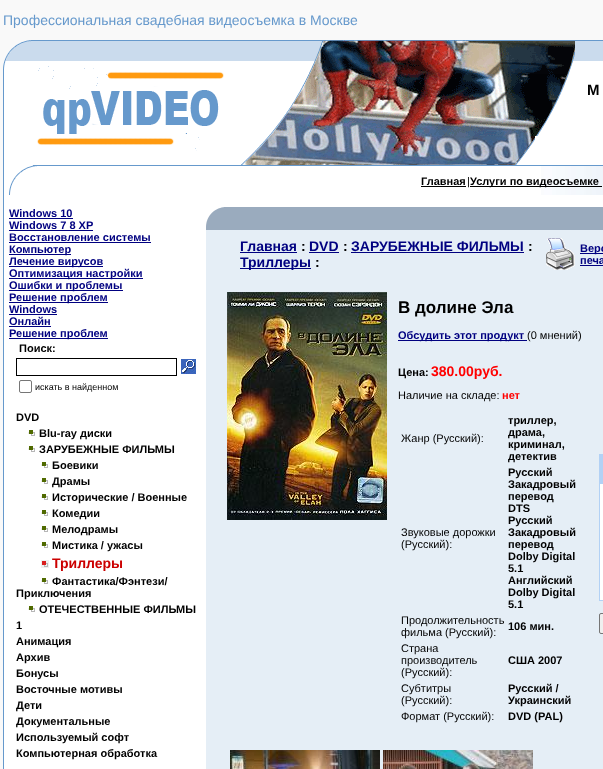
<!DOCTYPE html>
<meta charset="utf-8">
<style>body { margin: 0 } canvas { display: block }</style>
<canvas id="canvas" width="603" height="769"></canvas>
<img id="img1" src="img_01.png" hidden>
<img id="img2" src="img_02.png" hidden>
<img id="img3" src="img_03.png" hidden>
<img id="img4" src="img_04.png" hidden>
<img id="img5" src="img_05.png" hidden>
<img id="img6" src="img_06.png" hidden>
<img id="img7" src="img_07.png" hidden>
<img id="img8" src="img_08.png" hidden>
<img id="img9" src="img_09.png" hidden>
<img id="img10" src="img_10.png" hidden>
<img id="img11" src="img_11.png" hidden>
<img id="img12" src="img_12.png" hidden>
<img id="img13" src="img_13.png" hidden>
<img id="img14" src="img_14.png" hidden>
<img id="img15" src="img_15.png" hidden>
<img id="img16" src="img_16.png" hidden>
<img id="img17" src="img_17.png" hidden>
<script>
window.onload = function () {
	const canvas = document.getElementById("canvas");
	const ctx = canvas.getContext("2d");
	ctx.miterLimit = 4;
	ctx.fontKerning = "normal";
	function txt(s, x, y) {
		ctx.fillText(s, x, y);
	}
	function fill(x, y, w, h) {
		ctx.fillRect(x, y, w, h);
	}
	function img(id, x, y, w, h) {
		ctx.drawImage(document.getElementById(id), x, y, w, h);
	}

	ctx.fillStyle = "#FFFFFF";
	fill(0, 0, 603, 769);
	ctx.fillStyle = "#F9F9F9";
	fill(0, 0, 3, 769);
	fill(3, 0, 600, 40);
	img("img1", 3, 40, 30, 126);
	img("img2", 33, 40, 202, 126);
	img("img3", 37, 66, 187, 85);
	img("img4", 235, 40, 368, 126);
	img("img5", 309, 40, 266, 34);
	img("img6", 268, 74, 301, 62);
	img("img7", 241, 136, 294, 29);
	img("img8", 3, 166, 34, 29);
	img("img9", 541, 166, 62, 29);
	ctx.fillStyle = "#000000";
	fill(421, 186, 45, 1);
	fill(470, 186, 132, 1);
	ctx.fillStyle = "#6699CC";
	fill(3, 195, 1, 574);
	ctx.fillStyle = "#000080";
	fill(9, 218, 64, 1);
	fill(9, 230, 84, 1);
	fill(9, 242, 142, 1);
	fill(9, 254, 62, 1);
	fill(9, 266, 94, 1);
	fill(9, 278, 134, 1);
	fill(9, 290, 114, 1);
	fill(9, 302, 99, 1);
	fill(9, 314, 48, 1);
	fill(9, 326, 42, 1);
	fill(9, 338, 99, 1);
	ctx.strokeStyle = "#000000";
	ctx.strokeRect(16.5, 358.5, 160, 17);
	img("img10", 181, 359, 15, 15);
	ctx.beginPath();
	ctx.roundRect(19.5, 380.5, 12, 12, 1.5);
	ctx.strokeStyle = "#767676";
	ctx.stroke();
	img("img11", 28, 430, 7, 6);
	img("img11", 28, 446, 7, 6);
	img("img11", 41, 462, 7, 6);
	img("img11", 41, 478, 7, 6);
	img("img11", 41, 494, 7, 6);
	img("img11", 41, 510, 7, 6);
	img("img11", 41, 526, 7, 6);
	img("img11", 41, 542, 7, 6);
	img("img12", 41, 560, 8, 8);
	img("img11", 41, 578, 7, 6);
	img("img11", 28, 606, 7, 6);
	img("img13", 206, 207, 18, 23);
	ctx.fillStyle = "#9AABBE";
	fill(224, 207, 379, 23);
	ctx.fillStyle = "#E5EEF6";
	fill(206, 230, 397, 539);
	ctx.fillStyle = "#000080";
	fill(240, 252, 57, 1);
	fill(309, 252, 30, 1);
	fill(351, 252, 173, 1);
	fill(240, 268, 71, 1);
	img("img14", 546, 238, 29, 32);
	fill(580, 253, 23, 1);
	fill(580, 265, 23, 1);
	img("img15", 227, 292, 160, 228);
	fill(398, 340, 129, 1);
	ctx.fillStyle = "#B2D1F5";
	fill(599, 454, 4, 147);
	ctx.fillStyle = "#FFFFFF";
	fill(600, 484, 3, 116);
	ctx.fillStyle = "#EFEFEF";
	ctx.beginPath();
	ctx.roundRect(599.5, 613.5, 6, 20, 1.5);
	ctx.fill();
	ctx.stroke();
	img("img16", 230, 750, 150, 19);
	img("img17", 383, 750, 150, 19);
	ctx.font = "14px Liberation Sans";
	ctx.fillStyle = "#6699CC";
	txt("Профессиональная свадебная видеосъемка в Москве", 3, 25);
	ctx.font = "bold 15px Liberation Sans";
	ctx.fillStyle = "#000000";
	txt("М", 587, 95);
	ctx.font = "bold 11px Liberation Sans";
	txt("Главная", 421, 185);
	ctx.font = "11px Liberation Sans";
	txt("|", 467, 185);
	ctx.font = "bold 11px Liberation Sans";
	txt("Услуги по видеосъемке", 470, 185);
	ctx.fillStyle = "#000080";
	txt("Windows 10", 9, 217);
	txt("Windows 7 8 XP", 9, 229);
	txt("Восстановление системы", 9, 241);
	txt("Компьютер", 9, 253);
	txt("Лечение вирусов", 9, 265);
	txt("Оптимизация настройки", 9, 277);
	txt("Ошибки и проблемы", 9, 289);
	txt("Решение проблем", 9, 301);
	txt("Windows", 9, 313);
	txt("Онлайн", 9, 325);
	txt("Решение проблем", 9, 337);
	ctx.fillStyle = "#000000";
	txt("Поиск:", 19, 352);
	ctx.font = "9px Liberation Sans";
	txt("искать в найденном", 35, 390);
	ctx.font = "bold 11px Liberation Sans";
	txt("DVD", 16, 421);
	txt("Blu-ray диски", 39, 437);
	txt("ЗАРУБЕЖНЫЕ ФИЛЬМЫ", 39, 453);
	txt("Боевики", 52, 469);
	txt("Драмы", 52, 485);
	txt("Исторические / Военные", 52, 501);
	txt("Комедии", 52, 517);
	txt("Мелодрамы", 52, 533);
	txt("Мистика / ужасы", 52, 549);
	ctx.font = "bold 14px Liberation Sans";
	ctx.fillStyle = "#CC0000";
	txt("Триллеры", 52, 568);
	ctx.font = "bold 11px Liberation Sans";
	ctx.fillStyle = "#000000";
	txt("Фантастика/Фэнтези/", 52, 585);
	txt("Приключения", 16, 597);
	txt("ОТЕЧЕСТВЕННЫЕ ФИЛЬМЫ", 39, 613);
	txt("1", 16, 629);
	txt("Анимация", 16, 645);
	txt("Архив", 16, 661);
	txt("Бонусы", 16, 677);
	txt("Восточные мотивы", 16, 693);
	txt("Дети", 16, 709);
	txt("Документальные", 16, 725);
	txt("Используемый софт", 16, 741);
	txt("Компьютерная обработка", 16, 757);
	ctx.font = "bold 14px Liberation Sans";
	ctx.fillStyle = "#000080";
	txt("Главная", 240, 251);
	ctx.fillStyle = "#000000";
	txt(":", 301, 251);
	ctx.fillStyle = "#000080";
	txt("DVD", 309, 251);
	ctx.fillStyle = "#000000";
	txt(":", 343, 251);
	ctx.fillStyle = "#000080";
	txt("ЗАРУБЕЖНЫЕ ФИЛЬМЫ", 351, 251);
	ctx.fillStyle = "#000000";
	txt(":", 528, 251);
	ctx.fillStyle = "#000080";
	txt("Триллеры", 240, 267);
	ctx.fillStyle = "#000000";
	txt(":", 315, 267);
	ctx.font = "bold 11px Liberation Sans";
	ctx.fillStyle = "#000080";
	txt("Верс", 580, 252);
	txt("печа", 580, 264);
	ctx.font = "bold 17px Liberation Sans";
	ctx.fillStyle = "#000000";
	txt("В долине Эла", 398, 313);
	ctx.font = "bold 11px Liberation Sans";
	ctx.fillStyle = "#000080";
	txt("Обсудить этот продукт", 398, 339);
	ctx.font = "11px Liberation Sans";
	ctx.fillStyle = "#000000";
	txt("(0 мнений)", 527, 339);
	ctx.font = "bold 11px Liberation Sans";
	txt("Цена:", 398, 376);
	ctx.font = "bold 14px Liberation Sans";
	ctx.fillStyle = "#FF0000";
	txt("380.00руб.", 431, 376);
	ctx.font = "11px Liberation Sans";
	ctx.fillStyle = "#000000";
	txt("Наличие на складе:", 398, 399);
	ctx.font = "bold 11px Liberation Sans";
	ctx.fillStyle = "#FF0000";
	txt("нет", 502, 399);
	ctx.font = "11px Liberation Sans";
	ctx.fillStyle = "#000000";
	txt("Жанр (Русский):", 401, 442);
	ctx.font = "bold 11px Liberation Sans";
	txt("триллер,", 508, 424);
	txt("драма,", 508, 436);
	txt("криминал,", 508, 448);
	txt("детектив", 508, 460);
	ctx.font = "11px Liberation Sans";
	txt("Звуковые дорожки", 401, 536);
	txt("(Русский):", 401, 548);
	ctx.font = "bold 11px Liberation Sans";
	txt("Русский", 508, 476);
	txt("Закадровый", 508, 488);
	txt("перевод", 508, 500);
	txt("DTS", 508, 512);
	txt("Русский", 508, 524);
	txt("Закадровый", 508, 536);
	txt("перевод", 508, 548);
	txt("Dolby Digital", 508, 560);
	txt("5.1", 508, 572);
	txt("Английский", 508, 584);
	txt("Dolby Digital", 508, 596);
	txt("5.1", 508, 608);
	ctx.font = "11px Liberation Sans";
	txt("Продолжительность", 401, 624);
	txt("фильма (Русский):", 401, 636);
	ctx.font = "bold 11px Liberation Sans";
	txt("106 мин.", 508, 630);
	ctx.font = "11px Liberation Sans";
	txt("Страна", 401, 652);
	txt("производитель", 401, 664);
	txt("(Русский):", 401, 676);
	ctx.font = "bold 11px Liberation Sans";
	txt("США 2007", 508, 664);
	ctx.font = "11px Liberation Sans";
	txt("Субтитры", 401, 692);
	txt("(Русский):", 401, 704);
	ctx.font = "bold 11px Liberation Sans";
	txt("Русский /", 508, 692);
	txt("Украинский", 508, 704);
	ctx.font = "11px Liberation Sans";
	txt("Формат (Русский):", 401, 720);
	ctx.font = "bold 11px Liberation Sans";
	txt("DVD (PAL)", 508, 720);
};
</script>
